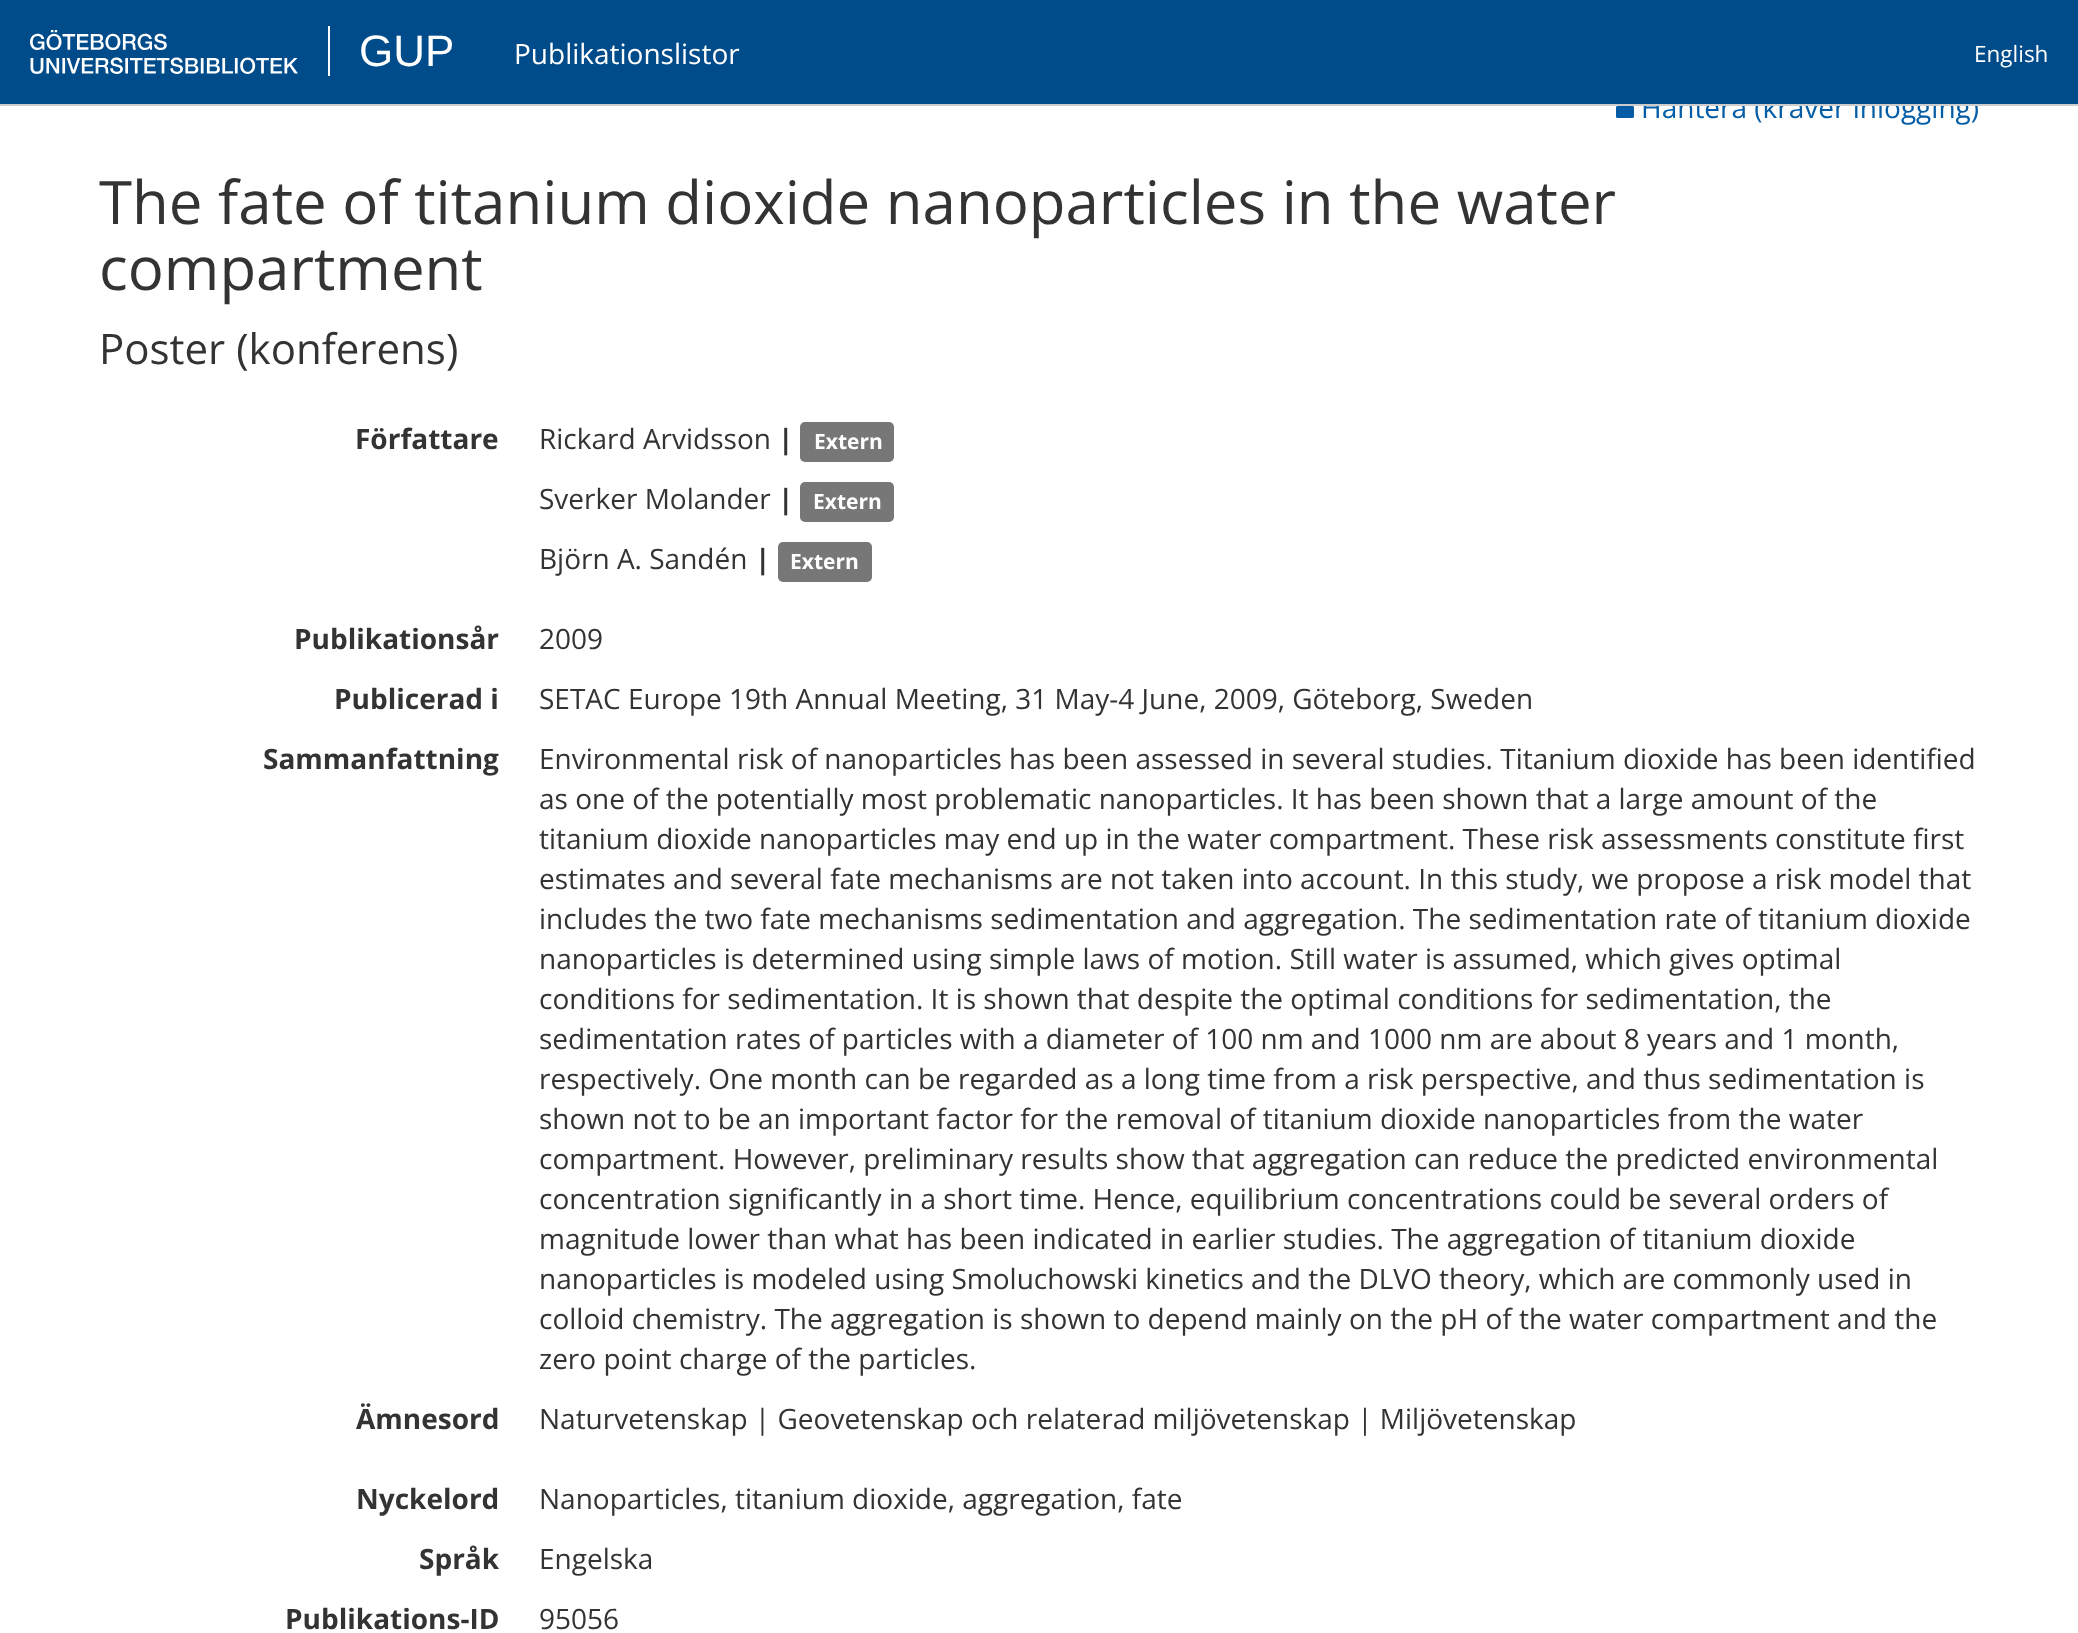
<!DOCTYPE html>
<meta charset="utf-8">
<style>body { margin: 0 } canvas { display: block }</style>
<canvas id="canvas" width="2078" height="1633"></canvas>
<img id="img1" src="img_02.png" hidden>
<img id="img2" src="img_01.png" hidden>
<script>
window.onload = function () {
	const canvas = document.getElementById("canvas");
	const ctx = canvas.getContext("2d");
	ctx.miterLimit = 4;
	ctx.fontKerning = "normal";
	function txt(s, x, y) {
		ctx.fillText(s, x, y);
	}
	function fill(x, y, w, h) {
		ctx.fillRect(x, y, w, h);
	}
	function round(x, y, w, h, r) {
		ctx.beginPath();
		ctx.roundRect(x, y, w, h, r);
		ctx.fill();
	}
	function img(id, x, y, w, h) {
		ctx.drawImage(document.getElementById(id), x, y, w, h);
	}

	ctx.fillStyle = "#FFFFFF";
	fill(0, 0, 2078, 1633);
	img("img1", 1616, 106, 18, 12);
	ctx.fillStyle = "#777777";
	round(800, 422, 94, 40, 5);
	round(800, 482, 94, 40, 5);
	round(778, 542, 94, 40, 5);
	ctx.font = "28px Open Sans";
	ctx.fillStyle = "#025DA6";
	txt("Hantera (kräver inlogging)", 1641, 118);
	ctx.fillStyle = "#004B89";
	fill(0, 0, 2078, 104);
	ctx.font = "22.5px Open Sans";
	ctx.fillStyle = "#FFFFFF";
	txt("English", 1974, 62);
	ctx.font = "28px Open Sans";
	txt("Publikationslistor", 514, 64);
	ctx.font = "44px Liberation Sans";
	txt("GUP", 359, 66);
	fill(328, 26, 2, 50);
	img("img2", 30, 30, 268, 44);
	ctx.fillStyle = "#CCCCCC";
	fill(0, 104, 2078, 2);
	ctx.font = "60px Open Sans";
	ctx.fillStyle = "#333333";
	txt("The fate of titanium dioxide nanoparticles in the water", 99, 224);
	txt("compartment", 99, 290);
	ctx.font = "42px Open Sans";
	txt("Poster (konferens)", 99, 364);
	ctx.font = "bold 28px Open Sans";
	txt("Författare", 355, 449);
	ctx.font = "28px Open Sans";
	txt("Rickard Arvidsson", 539, 449);
	ctx.font = "bold 28px Open Sans";
	txt("|", 778, 449);
	ctx.font = "bold 21px Open Sans";
	ctx.fillStyle = "#FFFFFF";
	txt("Extern", 814, 449);
	ctx.font = "28px Open Sans";
	ctx.fillStyle = "#333333";
	txt("Sverker Molander", 539, 509);
	ctx.font = "bold 28px Open Sans";
	txt("|", 778, 509);
	ctx.font = "bold 21px Open Sans";
	ctx.fillStyle = "#FFFFFF";
	txt("Extern", 813, 509);
	ctx.font = "28px Open Sans";
	ctx.fillStyle = "#333333";
	txt("Björn A. Sandén", 539, 569);
	ctx.font = "bold 28px Open Sans";
	txt("|", 755, 569);
	ctx.font = "bold 21px Open Sans";
	ctx.fillStyle = "#FFFFFF";
	txt("Extern", 790, 569);
	ctx.font = "bold 28px Open Sans";
	ctx.fillStyle = "#333333";
	txt("Publikationsår", 294, 649);
	ctx.font = "28px Open Sans";
	txt("2009", 539, 649);
	ctx.font = "bold 28px Open Sans";
	txt("Publicerad i", 334, 709);
	ctx.font = "28px Open Sans";
	txt("SETAC Europe 19th Annual Meeting, 31 May-4 June, 2009, Göteborg, Sweden", 539, 709);
	ctx.font = "bold 28px Open Sans";
	txt("Sammanfattning", 263, 769);
	ctx.font = "28px Open Sans";
	txt("Environmental risk of nanoparticles has been assessed in several studies. Titanium dioxide has been identified", 539, 769);
	txt("as one of the potentially most problematic nanoparticles. It has been shown that a large amount of the", 539, 809);
	txt("titanium dioxide nanoparticles may end up in the water compartment. These risk assessments constitute first", 539, 849);
	txt("estimates and several fate mechanisms are not taken into account. In this study, we propose a risk model that", 539, 889);
	txt("includes the two fate mechanisms sedimentation and aggregation. The sedimentation rate of titanium dioxide", 539, 929);
	txt("nanoparticles is determined using simple laws of motion. Still water is assumed, which gives optimal", 539, 969);
	txt("conditions for sedimentation. It is shown that despite the optimal conditions for sedimentation, the", 539, 1009);
	txt("sedimentation rates of particles with a diameter of 100 nm and 1000 nm are about 8 years and 1 month,", 539, 1049);
	txt("respectively. One month can be regarded as a long time from a risk perspective, and thus sedimentation is", 539, 1089);
	txt("shown not to be an important factor for the removal of titanium dioxide nanoparticles from the water", 539, 1129);
	txt("compartment. However, preliminary results show that aggregation can reduce the predicted environmental", 539, 1169);
	txt("concentration significantly in a short time. Hence, equilibrium concentrations could be several orders of", 539, 1209);
	txt("magnitude lower than what has been indicated in earlier studies. The aggregation of titanium dioxide", 539, 1249);
	txt("nanoparticles is modeled using Smoluchowski kinetics and the DLVO theory, which are commonly used in", 539, 1289);
	txt("colloid chemistry. The aggregation is shown to depend mainly on the pH of the water compartment and the", 539, 1329);
	txt("zero point charge of the particles.", 539, 1369);
	ctx.font = "bold 28px Open Sans";
	txt("Ämnesord", 356, 1429);
	ctx.font = "28px Open Sans";
	txt("Naturvetenskap | Geovetenskap och relaterad miljövetenskap | Miljövetenskap", 539, 1429);
	ctx.font = "bold 28px Open Sans";
	txt("Nyckelord", 356, 1509);
	ctx.font = "28px Open Sans";
	txt("Nanoparticles, titanium dioxide, aggregation, fate", 539, 1509);
	ctx.font = "bold 28px Open Sans";
	txt("Språk", 419, 1569);
	ctx.font = "28px Open Sans";
	txt("Engelska", 539, 1569);
	ctx.font = "bold 28px Open Sans";
	txt("Publikations-ID", 285, 1629);
	ctx.font = "28px Open Sans";
	txt("95056", 539, 1629);
};
</script>
